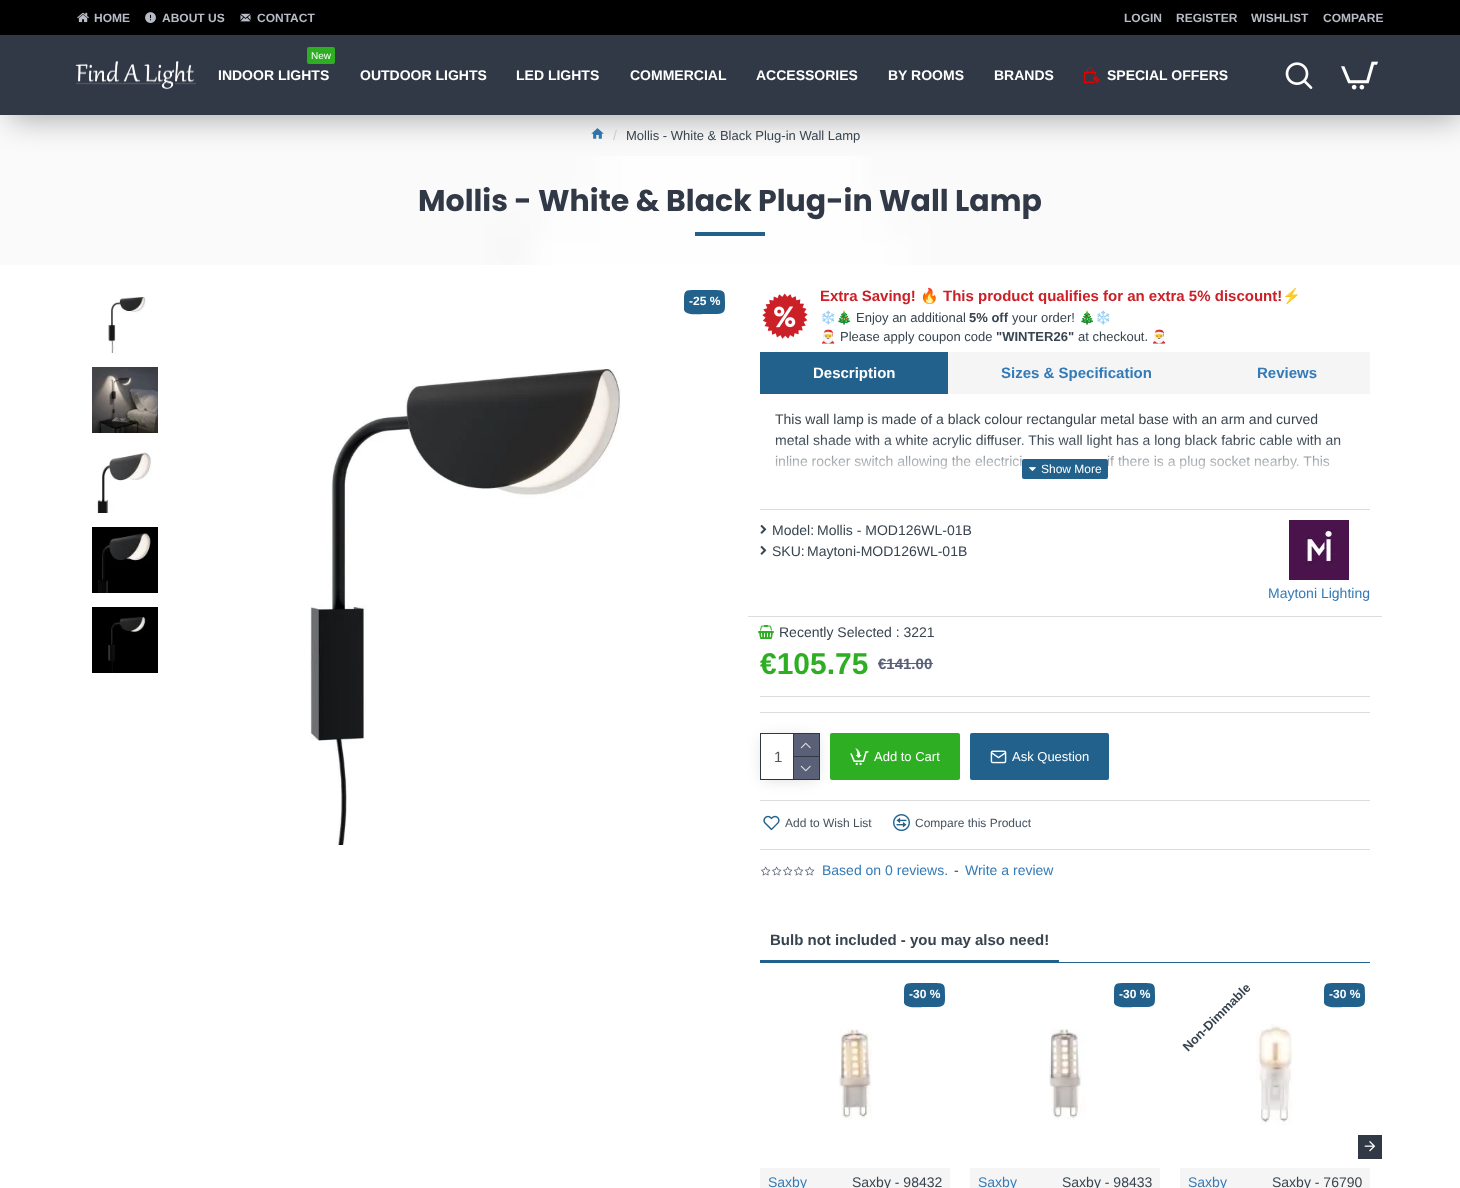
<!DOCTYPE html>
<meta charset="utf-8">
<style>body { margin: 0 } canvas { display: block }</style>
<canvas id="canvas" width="1460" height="1188"></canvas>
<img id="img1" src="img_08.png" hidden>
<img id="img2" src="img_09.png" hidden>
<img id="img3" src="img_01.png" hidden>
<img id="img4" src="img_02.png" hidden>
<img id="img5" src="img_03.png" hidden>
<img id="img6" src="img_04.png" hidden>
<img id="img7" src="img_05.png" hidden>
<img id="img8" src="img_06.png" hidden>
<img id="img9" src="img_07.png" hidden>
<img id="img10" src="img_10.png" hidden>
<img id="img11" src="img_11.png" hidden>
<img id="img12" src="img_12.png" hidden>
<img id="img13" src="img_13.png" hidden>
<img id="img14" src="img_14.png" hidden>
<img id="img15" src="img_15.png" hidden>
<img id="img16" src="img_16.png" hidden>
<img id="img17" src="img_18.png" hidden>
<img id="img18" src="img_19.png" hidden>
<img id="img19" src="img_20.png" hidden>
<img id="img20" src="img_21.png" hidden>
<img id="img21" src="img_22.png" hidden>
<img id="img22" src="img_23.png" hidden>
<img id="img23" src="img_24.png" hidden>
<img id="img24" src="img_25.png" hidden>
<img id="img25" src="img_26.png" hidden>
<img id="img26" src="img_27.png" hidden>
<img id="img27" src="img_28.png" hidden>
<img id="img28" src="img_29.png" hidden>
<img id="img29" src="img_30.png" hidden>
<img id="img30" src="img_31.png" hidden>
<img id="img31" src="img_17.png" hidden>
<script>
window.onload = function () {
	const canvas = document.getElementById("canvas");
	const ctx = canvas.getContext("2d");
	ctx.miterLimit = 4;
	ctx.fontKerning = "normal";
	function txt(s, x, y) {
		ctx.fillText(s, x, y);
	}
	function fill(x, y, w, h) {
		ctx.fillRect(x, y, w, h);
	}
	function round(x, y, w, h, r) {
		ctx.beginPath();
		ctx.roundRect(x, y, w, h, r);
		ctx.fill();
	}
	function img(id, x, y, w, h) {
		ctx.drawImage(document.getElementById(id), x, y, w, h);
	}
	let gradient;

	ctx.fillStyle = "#FFFFFF";
	fill(0, 0, 1460, 1188);
	ctx.fillStyle = "#FAFAFA";
	fill(0, 115, 1460, 41);
	img("img1", 591, 128, 13, 11);
	img("img2", 0, 156, 1460, 109);
	ctx.fillStyle = "rgba(0, 0, 0, 0.3)";
	ctx.filter = "blur(15px)";
	ctx.beginPath();
	ctx.rect(10, 15, 1450, 105);
	ctx.fill();
	ctx.filter = "none";
	ctx.fillStyle = "#313846";
	fill(0, 35, 1460, 80);
	ctx.fillStyle = "#000000";
	fill(0, 0, 1460, 35);
	img("img3", 77, 12, 12, 11);
	img("img4", 145, 12, 11, 11);
	img("img5", 240, 13, 11, 9);
	img("img6", 75, 61, 121, 29);
	ctx.fillStyle = "#2EAF23";
	round(307, 47, 28, 17, 2);
	img("img7", 1084, 67, 16, 16);
	img("img8", 1285, 62, 28, 27);
	img("img9", 1341, 61, 37, 29);
	ctx.fillStyle = "#21618C";
	fill(695, 232, 70, 4);
	img("img10", 108, 296, 39, 57);
	img("img11", 92, 367, 66, 66);
	img("img12", 95, 450, 57, 63);
	img("img13", 92, 527, 66, 66);
	img("img14", 92, 607, 66, 66);
	ctx.beginPath();
	ctx.moveTo(692, 290);
	ctx.lineTo(713, 290);
	ctx.bezierCurveTo(725, 290, 725, 291, 725, 302);
	ctx.bezierCurveTo(725, 309, 726, 314, 717, 314);
	ctx.lineTo(704, 314);
	ctx.bezierCurveTo(701, 314, 686, 316, 684, 310);
	ctx.lineTo(684, 300);
	ctx.bezierCurveTo(684, 293, 684, 290, 692, 290);
	ctx.closePath();
	ctx.fill();
	img("img15", 310, 369, 311, 476);
	img("img16", 762, 293, 46, 46);
	fill(760, 352, 188, 42);
	ctx.fillStyle = "#F5F5F5";
	fill(948, 352, 422, 42);
	ctx.fillStyle = "#DDDDDD";
	fill(760, 509, 610, 1);
	fill(760, 696, 610, 1);
	img("img17", 760, 524, 7, 10);
	img("img17", 760, 545, 7, 10);
	img("img18", 1289, 520, 60, 60);
	fill(748, 616, 634, 1);
	img("img19", 758, 625, 16, 14);
	ctx.fillStyle = "#596077";
	fill(878, 663, 55, 1);
	ctx.fillStyle = "#DDDDDD";
	fill(760, 712, 610, 1);
	ctx.strokeStyle = "#313846";
	ctx.strokeRect(760.5, 733.5, 59, 46);
	fill(760, 800, 610, 1);
	ctx.fillStyle = "rgba(0, 0, 0, 0.15)";
	ctx.filter = "blur(7.5px)";
	ctx.beginPath();
	ctx.rect(763, 738, 54, 41);
	ctx.fill();
	ctx.filter = "none";
	ctx.fillStyle = "#FFFFFF";
	round(761, 734, 58, 45, 2);
	ctx.fillStyle = "#313846";
	fill(793, 734, 1, 45);
	ctx.fillStyle = "#596077";
	fill(794, 734, 25, 22);
	ctx.fillStyle = "#313846";
	fill(794, 756, 25, 1);
	img("img20", 800, 742, 11, 7);
	ctx.fillStyle = "#596077";
	fill(794, 757, 25, 22);
	img("img21", 800, 765, 11, 7);
	ctx.fillStyle = "#2EAF23";
	round(830, 733, 130, 47, 2);
	img("img22", 850, 748, 19, 17);
	ctx.fillStyle = "#21618C";
	round(970, 733, 139, 47, 2);
	img("img23", 990, 750, 17, 14);
	img("img24", 763, 815, 17, 16);
	img("img25", 893, 814, 17, 18);
	ctx.fillStyle = "#DDDDDD";
	fill(760, 849, 610, 1);
	img("img26", 761, 866, 10, 10);
	img("img26", 772, 866, 10, 10);
	img("img26", 783, 866, 10, 10);
	img("img26", 794, 866, 10, 10);
	img("img26", 805, 866, 10, 10);
	ctx.fillStyle = "#21618C";
	fill(760, 962, 610, 1);
	fill(760, 960, 299, 2);
	ctx.beginPath();
	ctx.moveTo(912, 983);
	ctx.lineTo(933, 983);
	ctx.bezierCurveTo(945, 983, 945, 984, 945, 995);
	ctx.bezierCurveTo(945, 1002, 946, 1007, 937, 1007);
	ctx.lineTo(924, 1007);
	ctx.bezierCurveTo(921, 1007, 906, 1009, 904, 1003);
	ctx.lineTo(904, 993);
	ctx.bezierCurveTo(904, 986, 904, 983, 912, 983);
	ctx.closePath();
	ctx.fill();
	img("img27", 839, 1028, 33, 92);
	ctx.fillStyle = "#F5F5F5";
	fill(760, 1168, 190, 20);
	ctx.fillStyle = "#21618C";
	ctx.beginPath();
	ctx.moveTo(1122, 983);
	ctx.lineTo(1143, 983);
	ctx.bezierCurveTo(1155, 983, 1155, 984, 1155, 995);
	ctx.bezierCurveTo(1155, 1002, 1156, 1007, 1147, 1007);
	ctx.lineTo(1134, 1007);
	ctx.bezierCurveTo(1131, 1007, 1116, 1009, 1114, 1003);
	ctx.lineTo(1114, 993);
	ctx.bezierCurveTo(1114, 986, 1114, 983, 1122, 983);
	ctx.closePath();
	ctx.fill();
	img("img28", 1049, 1028, 37, 92);
	ctx.fillStyle = "#F5F5F5";
	fill(970, 1168, 190, 20);
	ctx.fillStyle = "#21618C";
	ctx.beginPath();
	ctx.moveTo(1332, 983);
	ctx.lineTo(1353, 983);
	ctx.bezierCurveTo(1365, 983, 1365, 984, 1365, 995);
	ctx.bezierCurveTo(1365, 1002, 1366, 1007, 1357, 1007);
	ctx.lineTo(1344, 1007);
	ctx.bezierCurveTo(1341, 1007, 1326, 1009, 1324, 1003);
	ctx.lineTo(1324, 993);
	ctx.bezierCurveTo(1324, 986, 1324, 983, 1332, 983);
	ctx.closePath();
	ctx.fill();
	img("img29", 1256, 1024, 37, 101);
	ctx.fillStyle = "#F5F5F5";
	fill(1180, 1168, 190, 20);
	ctx.fillStyle = "#313846";
	fill(1358, 1135, 24, 24);
	img("img30", 1364, 1141, 12, 11);
	ctx.font = "bold 12px Liberation Sans";
	ctx.fillStyle = "#B6BBC6";
	txt("HOME", 94, 22);
	txt("ABOUT US", 162, 22);
	txt("CONTACT", 257, 22);
	txt("LOGIN", 1124, 22);
	txt("REGISTER", 1176, 22);
	txt("WISHLIST", 1251, 22);
	txt("COMPARE", 1323, 22);
	ctx.font = "10px Liberation Sans";
	ctx.fillStyle = "#FFFFFF";
	txt("New", 311, 59);
	ctx.font = "bold 14px Liberation Sans";
	txt("INDOOR LIGHTS", 218, 80);
	txt("OUTDOOR LIGHTS", 360, 80);
	txt("LED LIGHTS", 516, 80);
	txt("COMMERCIAL", 630, 80);
	txt("ACCESSORIES", 756, 80);
	txt("BY ROOMS", 888, 80);
	txt("BRANDS", 994, 80);
	txt("SPECIAL OFFERS", 1107, 80);
	ctx.font = "14px Liberation Sans";
	ctx.fillStyle = "#CCCCCC";
	txt("/", 613, 140);
	ctx.font = "13px Liberation Sans";
	ctx.fillStyle = "#38444F";
	txt("Mollis - White & Black Plug-in Wall Lamp", 626, 140);
	ctx.font = "bold 30px Poppins";
	ctx.fillStyle = "#313846";
	txt("Mollis - White & Black Plug-in Wall Lamp", 418, 211);
	ctx.font = "bold 12px Liberation Sans";
	ctx.fillStyle = "#FFFFFF";
	txt("-25 %", 689, 305);
	ctx.font = "bold 15px Liberation Sans";
	ctx.fillStyle = "#CB2027";
	txt("Extra Saving!", 820, 301);
	ctx.font = "bold 15px Noto Color Emoji";
	txt("🔥", 920, 301);
	ctx.font = "bold 15px Liberation Sans";
	txt("This product qualifies for an extra 5% discount!", 943, 301);
	ctx.font = "bold 15px Noto Color Emoji";
	txt("⚡", 1282, 301);
	ctx.font = "13px Noto Color Emoji";
	ctx.fillStyle = "#38444F";
	txt("❄️🎄", 820, 322);
	ctx.font = "13px Liberation Sans";
	txt("Enjoy an additional", 856, 322);
	ctx.font = "bold 13px Liberation Sans";
	txt("5% off", 969, 322);
	ctx.font = "13px Liberation Sans";
	txt("your order!", 1012, 322);
	ctx.font = "13px Noto Color Emoji";
	txt("🎄❄️", 1079, 322);
	txt("🎅", 820, 341);
	ctx.font = "13px Liberation Sans";
	txt("Please apply coupon code", 840, 341);
	ctx.font = "bold 13px Liberation Sans";
	txt("\"WINTER26\"", 996, 341);
	ctx.font = "13px Liberation Sans";
	txt("at checkout.", 1078, 341);
	ctx.font = "13px Noto Color Emoji";
	txt("🎅", 1151, 341);
	ctx.font = "bold 15px Liberation Sans";
	ctx.fillStyle = "#FFFFFF";
	txt("Description", 813, 378);
	ctx.fillStyle = "#337AB7";
	txt("Sizes & Specification", 1001, 378);
	txt("Reviews", 1257, 378);
	ctx.font = "14px Liberation Sans";
	ctx.fillStyle = "#38444F";
	txt("This wall lamp is made of a black colour rectangular metal base with an arm and curved", 775, 424);
	txt("metal shade with a white acrylic diffuser. This wall light has a long black fabric cable with an", 775, 445);
	txt("inline rocker switch allowing the electrici", 775, 466);
	txt("if there is a plug socket nearby. This", 1107, 466);
	gradient = ctx.createLinearGradient(1065, 439, 1065, 479);
	gradient.addColorStop(0, "rgba(255, 255, 255, 0)");
	gradient.addColorStop(1, "#FFFFFF");
	ctx.fillStyle = gradient;
	fill(775, 440, 565, 29);
	ctx.fillStyle = "#21618C";
	round(1022, 459, 86, 20, 2);
	img("img31", 1029, 467, 7, 4);
	ctx.font = "12px Liberation Sans";
	ctx.fillStyle = "#FFFFFF";
	txt("Show More", 1041, 473);
	ctx.font = "14px Liberation Sans";
	ctx.fillStyle = "#38444F";
	txt("Model:", 772, 535);
	txt("Mollis - MOD126WL-01B", 817, 535);
	txt("SKU:", 772, 556);
	txt("Maytoni-MOD126WL-01B", 807, 556);
	ctx.fillStyle = "#337AB7";
	txt("Maytoni Lighting", 1268, 598);
	ctx.fillStyle = "#38444F";
	txt("Recently Selected : 3221", 779, 637);
	ctx.font = "bold 30px Liberation Sans";
	ctx.fillStyle = "#2EAF23";
	txt("€105.75", 760, 674);
	ctx.font = "bold 15px Liberation Sans";
	ctx.fillStyle = "#596077";
	txt("€141.00", 878, 669);
	ctx.font = "15px Liberation Sans";
	ctx.fillStyle = "#555555";
	txt("1", 774, 762);
	ctx.font = "13px Liberation Sans";
	ctx.fillStyle = "#FFFFFF";
	txt("Add to Cart", 874, 761);
	txt("Ask Question", 1012, 761);
	ctx.font = "12px Liberation Sans";
	ctx.fillStyle = "#45525E";
	txt("Add to Wish List", 785, 827);
	txt("Compare this Product", 915, 827);
	ctx.font = "14px Liberation Sans";
	ctx.fillStyle = "#337AB7";
	txt("Based on 0 reviews.", 822, 875);
	ctx.fillStyle = "#38444F";
	txt("-", 954, 875);
	ctx.fillStyle = "#337AB7";
	txt("Write a review", 965, 875);
	ctx.font = "bold 15px Liberation Sans";
	ctx.fillStyle = "#38444F";
	txt("Bulb not included - you may also need!", 770, 945);
	ctx.font = "bold 12px Liberation Sans";
	ctx.fillStyle = "#FFFFFF";
	txt("-30 %", 909, 998);
	ctx.font = "14px Liberation Sans";
	ctx.fillStyle = "#337AB7";
	txt("Saxby", 768, 1187);
	ctx.fillStyle = "#38444F";
	txt("Saxby - 98432", 852, 1187);
	ctx.font = "bold 12px Liberation Sans";
	ctx.fillStyle = "#FFFFFF";
	txt("-30 %", 1119, 998);
	ctx.font = "14px Liberation Sans";
	ctx.fillStyle = "#337AB7";
	txt("Saxby", 978, 1187);
	ctx.fillStyle = "#38444F";
	txt("Saxby - 98433", 1062, 1187);
	ctx.font = "bold 12.75px Liberation Sans";
	ctx.save();
	ctx.translate(1188, 1052);
	ctx.rotate(-45 * Math.PI / 180);
	ctx.fillText("Non-Dimmable", 0, 0);
	ctx.restore();
	ctx.font = "bold 12px Liberation Sans";
	ctx.fillStyle = "#FFFFFF";
	txt("-30 %", 1329, 998);
	ctx.font = "14px Liberation Sans";
	ctx.fillStyle = "#337AB7";
	txt("Saxby", 1188, 1187);
	ctx.fillStyle = "#38444F";
	txt("Saxby - 76790", 1272, 1187);
};
</script>
